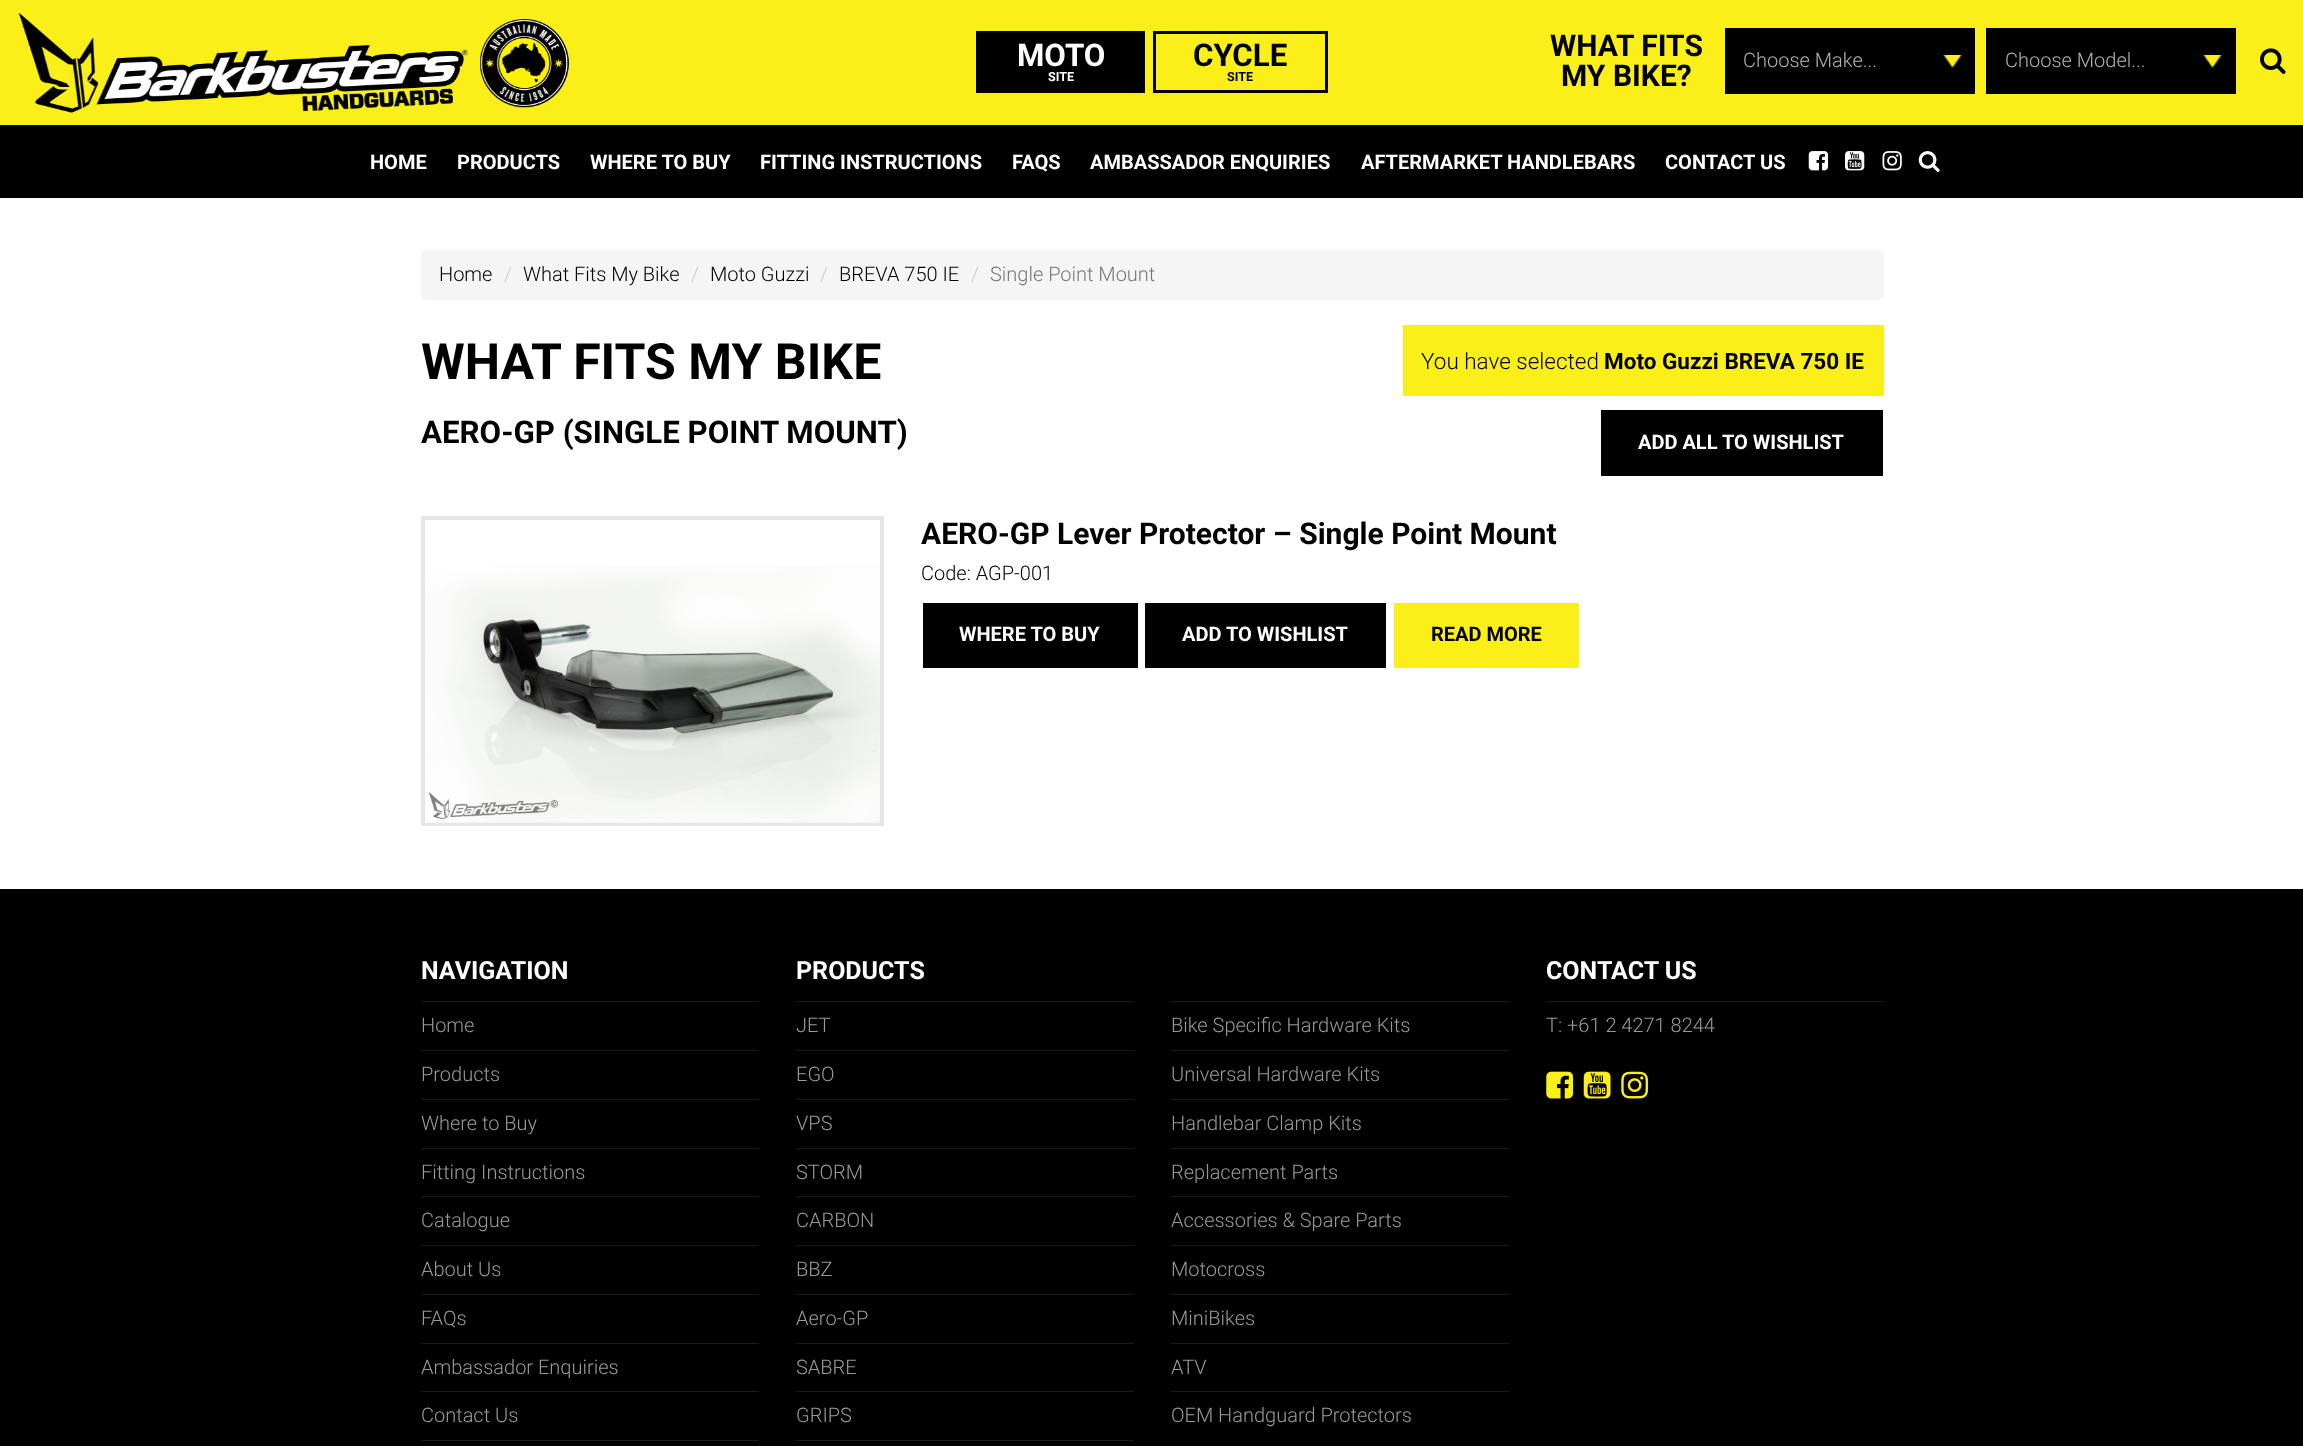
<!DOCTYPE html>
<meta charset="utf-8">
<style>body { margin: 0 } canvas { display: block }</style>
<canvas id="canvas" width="2303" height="1446"></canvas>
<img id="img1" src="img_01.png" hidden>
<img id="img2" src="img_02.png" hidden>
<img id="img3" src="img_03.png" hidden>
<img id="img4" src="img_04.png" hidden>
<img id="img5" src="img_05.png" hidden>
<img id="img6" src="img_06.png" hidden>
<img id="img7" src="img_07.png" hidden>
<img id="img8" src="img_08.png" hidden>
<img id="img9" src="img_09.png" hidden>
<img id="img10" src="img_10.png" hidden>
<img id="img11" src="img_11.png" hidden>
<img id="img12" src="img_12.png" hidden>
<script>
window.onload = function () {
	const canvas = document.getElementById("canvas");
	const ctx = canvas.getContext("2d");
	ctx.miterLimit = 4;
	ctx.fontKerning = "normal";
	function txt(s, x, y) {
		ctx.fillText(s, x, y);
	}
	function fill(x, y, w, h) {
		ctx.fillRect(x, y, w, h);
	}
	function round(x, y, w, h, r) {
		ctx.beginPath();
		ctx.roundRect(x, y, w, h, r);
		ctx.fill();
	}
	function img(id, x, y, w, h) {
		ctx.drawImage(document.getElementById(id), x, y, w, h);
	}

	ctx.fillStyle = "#FFFFFF";
	fill(0, 0, 2303, 1446);
	ctx.fillStyle = "#FBEF1A";
	fill(0, 0, 2303, 125);
	img("img1", 19, 13, 550, 100);
	ctx.fillStyle = "#000000";
	fill(976, 31, 169, 62);
	ctx.strokeStyle = "#000000";
	ctx.lineWidth = 3;
	ctx.strokeRect(1154.5, 32.5, 172, 59);
	fill(1725, 28, 250, 66);
	img("img2", 1943, 55, 19, 13);
	fill(1986, 28, 250, 66);
	img("img3", 2203, 55, 19, 13);
	img("img4", 2260, 48, 26, 26);
	fill(0, 125, 2303, 73);
	img("img5", 1808, 151, 21, 20);
	img("img6", 1845, 151, 20, 20);
	img("img7", 1882, 151, 20, 20);
	img("img8", 1918, 151, 22, 21);
	ctx.fillStyle = "#F5F5F5";
	round(421, 250, 1463, 50, 5);
	ctx.fillStyle = "#FBEF1A";
	fill(1403, 325, 481, 71);
	ctx.fillStyle = "#000000";
	fill(1601, 410, 282, 66);
	ctx.strokeStyle = "#E6E6E6";
	ctx.lineWidth = 4;
	ctx.strokeRect(423, 518, 459, 306);
	img("img9", 425, 565, 455, 258);
	fill(923, 603, 215, 65);
	fill(1145, 603, 241, 65);
	ctx.fillStyle = "#FBEF1A";
	fill(1394, 603, 185, 65);
	ctx.fillStyle = "#000000";
	fill(0, 889, 2303, 557);
	ctx.fillStyle = "#1A1A1A";
	fill(421, 1001, 338, 1);
	fill(421, 1050, 338, 1);
	fill(421, 1099, 338, 1);
	fill(421, 1148, 338, 1);
	fill(421, 1196, 338, 1);
	fill(421, 1245, 338, 1);
	fill(421, 1294, 338, 1);
	fill(421, 1343, 338, 1);
	fill(421, 1391, 338, 1);
	fill(421, 1440, 338, 1);
	fill(796, 1001, 338, 1);
	fill(796, 1050, 338, 1);
	fill(796, 1099, 338, 1);
	fill(796, 1148, 338, 1);
	fill(796, 1196, 338, 1);
	fill(796, 1245, 338, 1);
	fill(796, 1294, 338, 1);
	fill(796, 1343, 338, 1);
	fill(796, 1391, 338, 1);
	fill(796, 1440, 338, 1);
	fill(1546, 1001, 338, 1);
	img("img10", 1546, 1071, 28, 28);
	img("img11", 1583, 1071, 28, 28);
	img("img12", 1621, 1071, 28, 28);
	fill(1171, 1001, 338, 1);
	fill(1171, 1050, 338, 1);
	fill(1171, 1099, 338, 1);
	fill(1171, 1148, 338, 1);
	fill(1171, 1196, 338, 1);
	fill(1171, 1245, 338, 1);
	fill(1171, 1294, 338, 1);
	fill(1171, 1343, 338, 1);
	fill(1171, 1391, 338, 1);
	ctx.font = "bold 31.25px Roboto";
	ctx.fillStyle = "#FFFFFF";
	txt("MOTO", 1017, 66);
	ctx.font = "bold 12.5px Roboto";
	txt("SITE", 1048, 81);
	ctx.font = "bold 31.25px Roboto";
	ctx.fillStyle = "#000000";
	txt("CYCLE", 1193, 66);
	ctx.font = "bold 12.5px Roboto";
	txt("SITE", 1227, 81);
	ctx.font = "bold 30px Roboto";
	txt("WHAT FITS", 1550, 56);
	txt("MY BIKE?", 1561, 86);
	ctx.font = "300 20px Roboto";
	ctx.fillStyle = "#B3B3B3";
	txt("Choose Make...", 1743, 67);
	txt("Choose Model...", 2005, 67);
	ctx.font = "bold 20px Roboto";
	ctx.fillStyle = "#FFFFFF";
	txt("HOME", 370, 169);
	txt("PRODUCTS", 457, 169);
	txt("WHERE TO BUY", 590, 169);
	txt("FITTING INSTRUCTIONS", 760, 169);
	txt("FAQS", 1012, 169);
	txt("AMBASSADOR ENQUIRIES", 1090, 169);
	txt("AFTERMARKET HANDLEBARS", 1361, 169);
	txt("CONTACT US", 1665, 169);
	ctx.font = "300 20px Roboto";
	ctx.fillStyle = "#000000";
	txt("Home", 439, 281);
	ctx.fillStyle = "#CCCCCC";
	txt("/", 504, 281);
	ctx.fillStyle = "#000000";
	txt("What Fits My Bike", 523, 281);
	ctx.fillStyle = "#CCCCCC";
	txt("/", 691, 281);
	ctx.fillStyle = "#000000";
	txt("Moto Guzzi", 710, 281);
	ctx.fillStyle = "#CCCCCC";
	txt("/", 820, 281);
	ctx.fillStyle = "#000000";
	txt("BREVA 750 IE", 839, 281);
	ctx.fillStyle = "#CCCCCC";
	txt("/", 971, 281);
	ctx.fillStyle = "#777777";
	txt("Single Point Mount", 990, 281);
	ctx.font = "bold 50px Roboto";
	ctx.fillStyle = "#000000";
	txt("WHAT FITS MY BIKE", 421, 379);
	ctx.font = "300 22.5px Roboto";
	txt("You have selected", 1421, 369);
	ctx.font = "bold 22.5px Roboto";
	txt("Moto Guzzi BREVA 750 IE", 1604, 369);
	ctx.font = "bold 31.25px Roboto";
	txt("AERO-GP (SINGLE POINT MOUNT)", 421, 443);
	ctx.font = "bold 20px Roboto";
	ctx.fillStyle = "#FFFFFF";
	txt("ADD ALL TO WISHLIST", 1638, 449);
	ctx.font = "bold 30px Roboto";
	ctx.fillStyle = "#000000";
	txt("AERO-GP Lever Protector – Single Point Mount", 921, 544);
	ctx.font = "300 20px Roboto";
	txt("Code: AGP-001", 921, 580);
	ctx.font = "bold 20px Roboto";
	ctx.fillStyle = "#FFFFFF";
	txt("WHERE TO BUY", 959, 641);
	txt("ADD TO WISHLIST", 1182, 641);
	ctx.fillStyle = "#000000";
	txt("READ MORE", 1431, 641);
	ctx.font = "bold 25px Roboto";
	ctx.fillStyle = "#FFFFFF";
	txt("NAVIGATION", 421, 979);
	ctx.font = "300 20px Roboto";
	ctx.fillStyle = "#999999";
	txt("Home", 421, 1032);
	txt("Products", 421, 1081);
	txt("Where to Buy", 421, 1130);
	txt("Fitting Instructions", 421, 1179);
	txt("Catalogue", 421, 1227);
	txt("About Us", 421, 1276);
	txt("FAQs", 421, 1325);
	txt("Ambassador Enquiries", 421, 1374);
	txt("Contact Us", 421, 1422);
	ctx.font = "bold 25px Roboto";
	ctx.fillStyle = "#FFFFFF";
	txt("PRODUCTS", 796, 979);
	ctx.font = "300 20px Roboto";
	ctx.fillStyle = "#999999";
	txt("JET", 796, 1032);
	txt("EGO", 796, 1081);
	txt("VPS", 796, 1130);
	txt("STORM", 796, 1179);
	txt("CARBON", 796, 1227);
	txt("BBZ", 796, 1276);
	txt("Aero-GP", 796, 1325);
	txt("SABRE", 796, 1374);
	txt("GRIPS", 796, 1422);
	ctx.font = "bold 25px Roboto";
	ctx.fillStyle = "#FFFFFF";
	txt("CONTACT US", 1546, 979);
	ctx.font = "300 20px Roboto";
	ctx.fillStyle = "#999999";
	txt("T: +61 2 4271 8244", 1546, 1032);
	txt("Bike Specific Hardware Kits", 1171, 1032);
	txt("Universal Hardware Kits", 1171, 1081);
	txt("Handlebar Clamp Kits", 1171, 1130);
	txt("Replacement Parts", 1171, 1179);
	txt("Accessories & Spare Parts", 1171, 1227);
	txt("Motocross", 1171, 1276);
	txt("MiniBikes", 1171, 1325);
	txt("ATV", 1171, 1374);
	txt("OEM Handguard Protectors", 1171, 1422);
};
</script>
